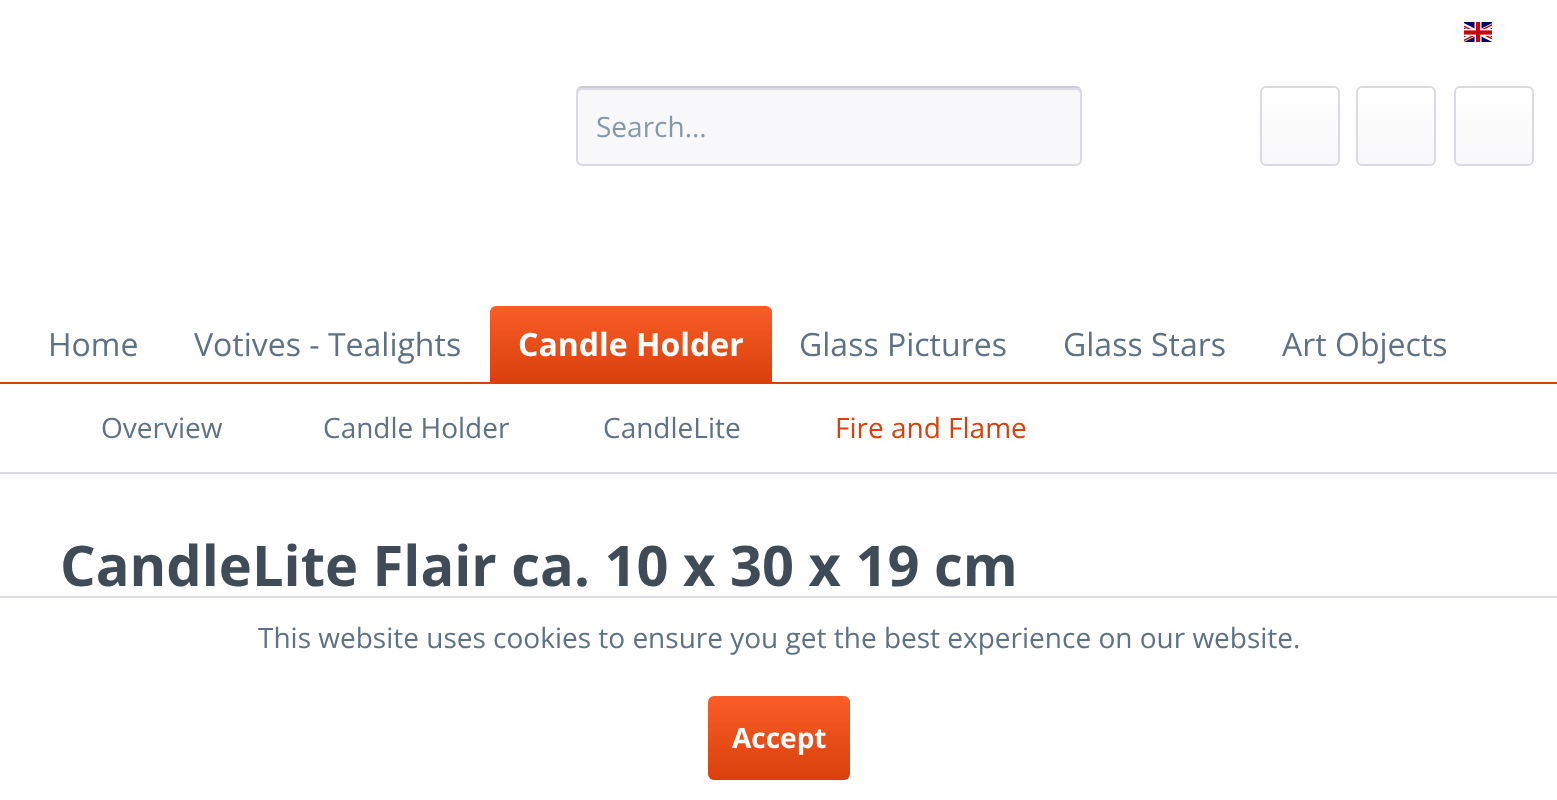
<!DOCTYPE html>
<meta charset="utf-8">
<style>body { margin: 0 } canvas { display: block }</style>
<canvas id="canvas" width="1557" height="800"></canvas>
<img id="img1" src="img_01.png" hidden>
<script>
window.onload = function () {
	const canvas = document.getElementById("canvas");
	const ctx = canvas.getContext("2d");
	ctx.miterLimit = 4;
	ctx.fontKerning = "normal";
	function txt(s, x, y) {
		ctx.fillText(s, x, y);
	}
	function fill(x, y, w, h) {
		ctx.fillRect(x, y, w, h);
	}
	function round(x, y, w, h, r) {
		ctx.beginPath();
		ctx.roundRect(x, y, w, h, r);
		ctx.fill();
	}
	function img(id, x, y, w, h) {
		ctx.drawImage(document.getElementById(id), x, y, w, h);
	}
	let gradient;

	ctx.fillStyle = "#FFFFFF";
	fill(0, 0, 1557, 800);
	img("img1", 1464, 22, 28, 20);
	ctx.fillStyle = "#F8F8FA";
	round(576, 86, 506, 80, 6);
	ctx.fillStyle = "#DADAE5";
	ctx.beginPath();
	ctx.moveTo(582, 90);
	ctx.lineTo(1076, 90);
	ctx.bezierCurveTo(1078, 90, 1080, 92, 1080, 94);
	ctx.bezierCurveTo(1080, 91, 1080, 88, 1076, 88);
	ctx.lineTo(582, 88);
	ctx.bezierCurveTo(578, 88, 578, 91, 578, 94);
	ctx.bezierCurveTo(578, 92, 580, 90, 582, 90);
	ctx.closePath();
	ctx.fill();
	ctx.beginPath();
	ctx.moveTo(578.5, 88.5);
	ctx.bezierCurveTo(579.5, 87.5, 580.5, 87, 582, 87);
	ctx.lineTo(1076, 87);
	ctx.bezierCurveTo(1077.5, 87, 1078.5, 87.5, 1079.5, 88.5);
	ctx.strokeStyle = "#CBCBDB";
	ctx.lineWidth = 2;
	ctx.stroke();
	ctx.beginPath();
	ctx.moveTo(1079.5, 88.5);
	ctx.bezierCurveTo(1080.5, 89.5, 1081, 90.5, 1081, 92);
	ctx.lineTo(1081, 160);
	ctx.bezierCurveTo(1081, 161.5, 1080.5, 162.5, 1079.5, 163.5);
	ctx.bezierCurveTo(1078.5, 164.5, 1077.5, 165, 1076, 165);
	ctx.lineTo(582, 165);
	ctx.bezierCurveTo(580.5, 165, 579.5, 164.5, 578.5, 163.5);
	ctx.bezierCurveTo(577.5, 162.5, 577, 161.5, 577, 160);
	ctx.lineTo(577, 92);
	ctx.bezierCurveTo(577, 90.5, 577.5, 89.5, 578.5, 88.5);
	ctx.strokeStyle = "#DADAE5";
	ctx.stroke();
	gradient = ctx.createLinearGradient(1300, 88, 1300, 164);
	gradient.addColorStop(0, "#FFFFFF");
	gradient.addColorStop(1, "#F8F8FA");
	ctx.fillStyle = gradient;
	round(1262, 88, 76, 76, 4);
	ctx.beginPath();
	ctx.roundRect(1261, 87, 78, 78, 5);
	ctx.stroke();
	gradient = ctx.createLinearGradient(1396, 88, 1396, 164);
	gradient.addColorStop(0, "#FFFFFF");
	gradient.addColorStop(1, "#F8F8FA");
	ctx.fillStyle = gradient;
	round(1358, 88, 76, 76, 4);
	ctx.beginPath();
	ctx.roundRect(1357, 87, 78, 78, 5);
	ctx.stroke();
	gradient = ctx.createLinearGradient(1494, 88, 1494, 164);
	gradient.addColorStop(0, "#FFFFFF");
	gradient.addColorStop(1, "#F8F8FA");
	ctx.fillStyle = gradient;
	round(1456, 88, 76, 76, 4);
	ctx.beginPath();
	ctx.roundRect(1455, 87, 78, 78, 5);
	ctx.stroke();
	ctx.fillStyle = "#D9400B";
	fill(0, 382, 1557, 2);
	gradient = ctx.createLinearGradient(631, 306, 631, 382);
	gradient.addColorStop(0, "#FA5D27");
	gradient.addColorStop(1, "#D9400B");
	ctx.fillStyle = gradient;
	ctx.beginPath();
	ctx.roundRect(490, 306, 282, 76, [6, 6, 0, 0]);
	ctx.fill();
	ctx.fillStyle = "#DADAE5";
	fill(0, 472, 1557, 2);
	fill(0, 596, 1557, 2);
	gradient = ctx.createLinearGradient(779, 696, 779, 780);
	gradient.addColorStop(0, "#FA5D27");
	gradient.addColorStop(1, "#D9400B");
	ctx.fillStyle = gradient;
	round(708, 696, 142, 84, 6);
	ctx.font = "28px Open Sans";
	ctx.fillStyle = "#8798A9";
	txt("Search...", 596, 137);
	ctx.font = "32px Open Sans";
	ctx.fillStyle = "#5F7285";
	txt("Home", 48, 356);
	txt("Votives - Tealights", 194, 356);
	ctx.font = "bold 32px Open Sans";
	ctx.fillStyle = "#FFFFFF";
	txt("Candle Holder", 518, 356);
	ctx.font = "32px Open Sans";
	ctx.fillStyle = "#5F7285";
	txt("Glass Pictures", 799, 356);
	txt("Glass Stars", 1063, 356);
	txt("Art Objects", 1282, 356);
	ctx.font = "28px Open Sans";
	txt("Overview", 101, 438);
	txt("Candle Holder", 323, 438);
	txt("CandleLite", 603, 438);
	ctx.fillStyle = "#D9400B";
	txt("Fire and Flame", 835, 438);
	ctx.font = "bold 56px Open Sans";
	ctx.fillStyle = "#3F4C58";
	txt("CandleLite Flair ca. 10 x 30 x 19 cm", 60, 586);
	ctx.font = "28px Open Sans";
	ctx.fillStyle = "#5F7285";
	txt("This website uses cookies to ensure you get the best experience on our website.", 258, 648);
	ctx.font = "bold 28px Open Sans";
	ctx.fillStyle = "#FFFFFF";
	txt("Accept", 732, 748);
};
</script>
